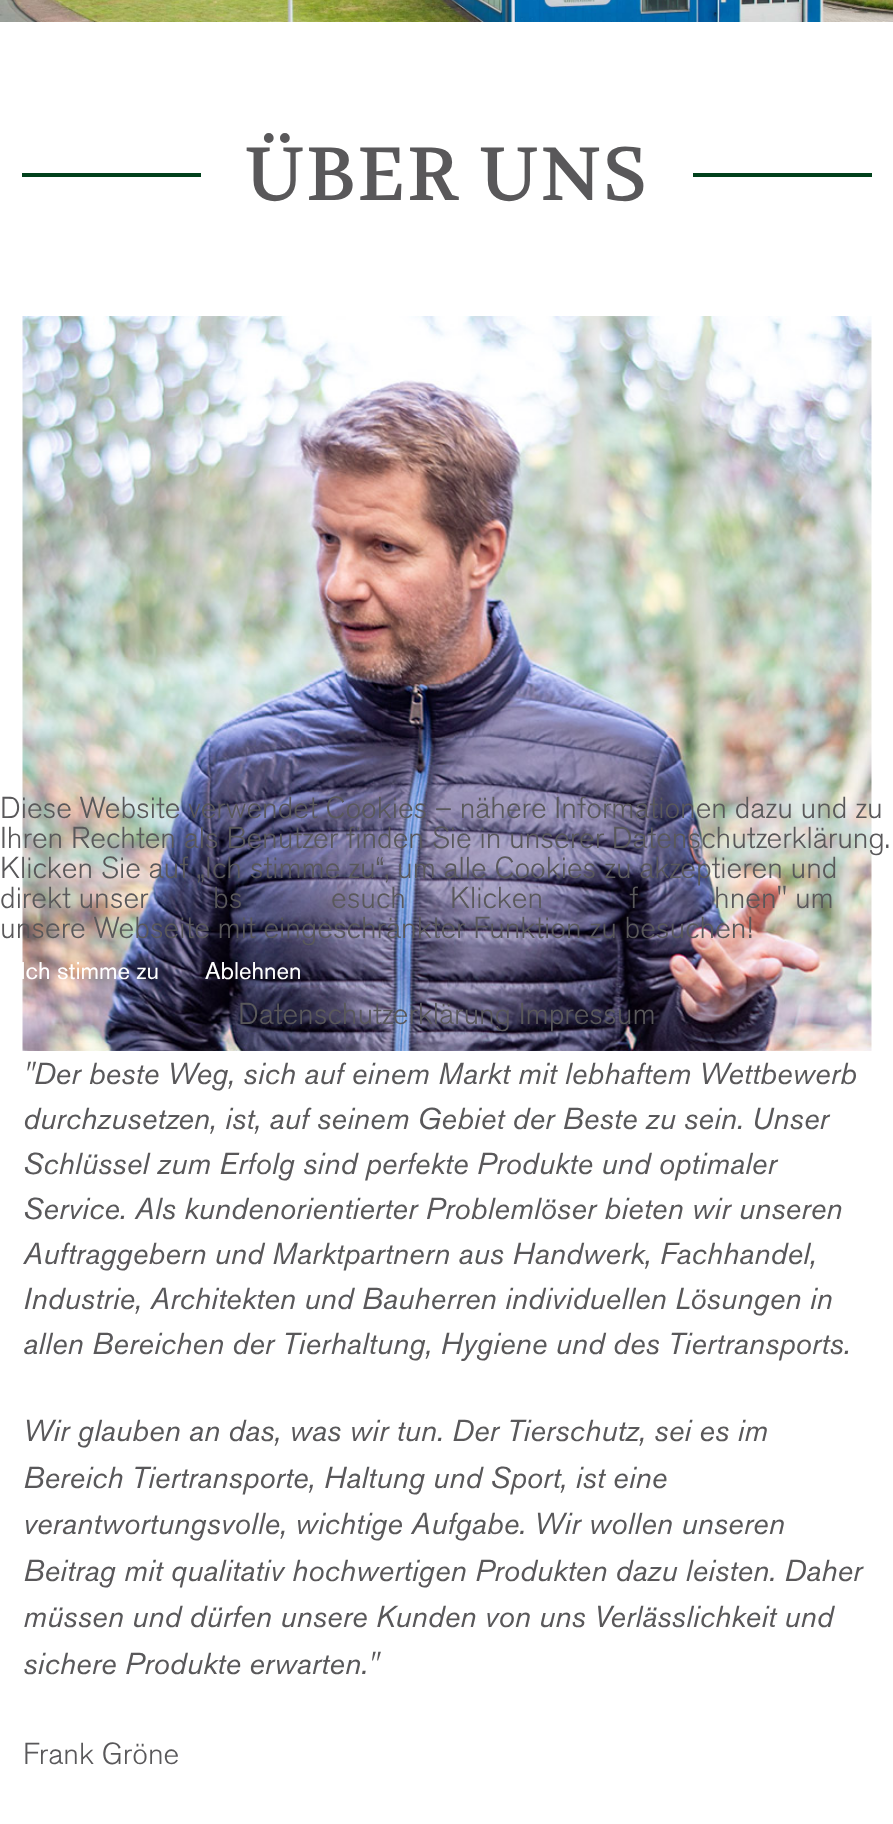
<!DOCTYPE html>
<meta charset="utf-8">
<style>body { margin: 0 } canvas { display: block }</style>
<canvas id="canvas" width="893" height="1824"></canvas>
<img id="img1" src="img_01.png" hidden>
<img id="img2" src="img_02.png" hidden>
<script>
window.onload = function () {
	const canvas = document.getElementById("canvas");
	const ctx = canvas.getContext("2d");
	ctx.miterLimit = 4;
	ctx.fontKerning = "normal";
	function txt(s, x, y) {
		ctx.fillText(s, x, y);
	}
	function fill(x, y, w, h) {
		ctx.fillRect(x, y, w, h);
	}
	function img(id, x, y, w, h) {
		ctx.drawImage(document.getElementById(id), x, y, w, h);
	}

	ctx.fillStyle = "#FFFFFF";
	fill(0, 0, 893, 1824);
	img("img1", 0, 0, 893, 22);
	ctx.fillStyle = "#01411C";
	fill(22, 173, 850, 4);
	ctx.fillStyle = "#FFFFFF";
	fill(201, 173, 492, 4);
	img("img2", 22, 316, 850, 735);
	ctx.letterSpacing = "1.5px";
	ctx.font = "75px Volkhov";
	ctx.fillStyle = "#59585A";
	txt("ÜBER UNS", 245, 200);
	ctx.letterSpacing = "0px";
	ctx.font = "italic 500 30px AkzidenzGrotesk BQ";
	txt("\"Der beste Weg, sich auf einem Markt mit lebhaftem Wettbewerb", 23, 1084);
	txt("durchzusetzen, ist, auf seinem Gebiet der Beste zu sein. Unser", 23, 1129);
	txt("Schlüssel zum Erfolg sind perfekte Produkte und optimaler", 23, 1174);
	txt("Service. Als kundenorientierter Problemlöser bieten wir unseren", 23, 1219);
	txt("Auftraggebern und Marktpartnern aus Handwerk, Fachhandel,", 23, 1264);
	txt("Industrie, Architekten und Bauherren individuellen Lösungen in", 23, 1309);
	txt("allen Bereichen der Tierhaltung, Hygiene und des Tiertransports.", 23, 1354);
	txt("Wir glauben an das, was wir tun. Der Tierschutz, sei es im", 23, 1441);
	txt("Bereich Tiertransporte, Haltung und Sport, ist eine", 23, 1488);
	txt("verantwortungsvolle, wichtige Aufgabe. Wir wollen unseren", 23, 1534);
	txt("Beitrag mit qualitativ hochwertigen Produkten dazu leisten. Daher", 23, 1581);
	txt("müssen und dürfen unsere Kunden von uns Verlässlichkeit und", 23, 1627);
	txt("sichere Produkte erwarten.\"", 23, 1674);
	ctx.font = "300 30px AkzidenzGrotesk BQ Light";
	txt("Frank Gröne", 23, 1764);
	txt("Diese Website verwendet Cookies – nähere Informationen dazu und zu", 0, 818);
	txt("Ihren Rechten als Benutzer finden Sie in unserer Datenschutzerklärung.", 0, 848);
	txt("Klicken Sie auf „Ich stimme zu“, um alle Cookies zu akzeptieren und", 0, 878);
	txt("direkt unser", 0, 908);
	txt("bs", 213, 908);
	txt("esuch", 331, 908);
	txt("Klicken", 450, 908);
	txt("f", 629, 908);
	txt("hnen\" um", 714, 908);
	txt("unsere Webseite mit eingeschränkter Funktion zu besuchen!", 0, 938);
	ctx.font = "500 24px AkzidenzGrotesk BQ";
	ctx.fillStyle = "#FFFFFF";
	txt("Ich stimme zu", 20, 979);
	txt("Ablehnen", 205, 979);
	ctx.font = "300 30px AkzidenzGrotesk BQ Light";
	ctx.fillStyle = "#59585A";
	txt("Datenschutzerklärung Impressum", 238, 1024);
};
</script>
